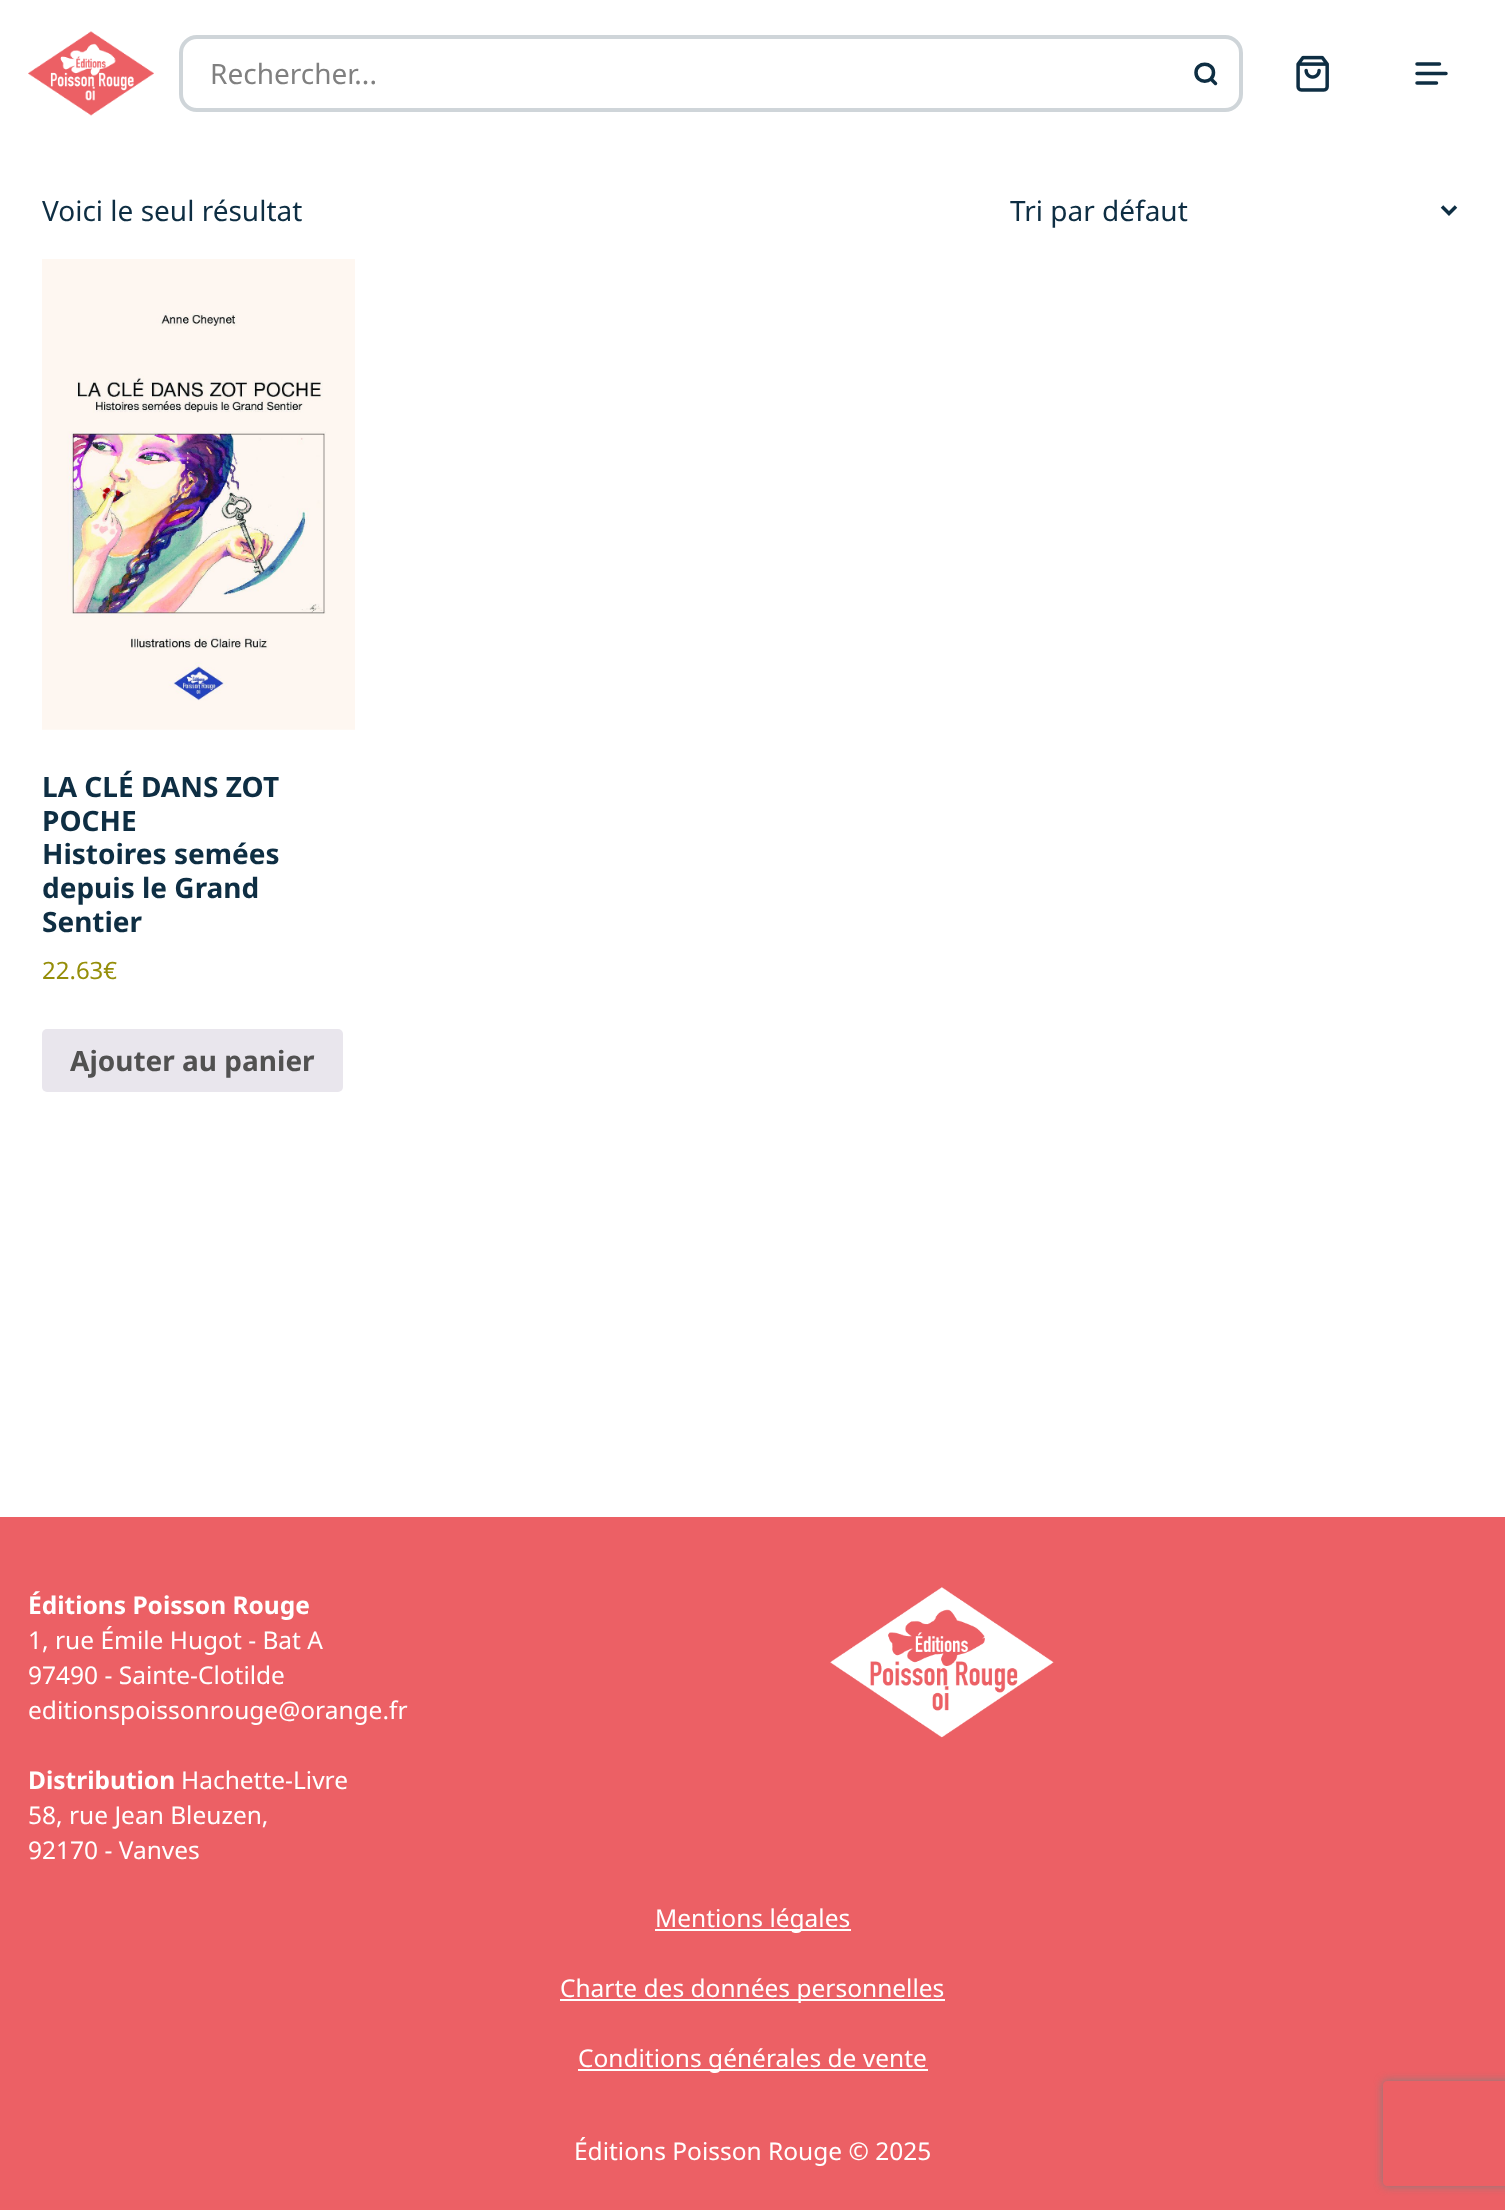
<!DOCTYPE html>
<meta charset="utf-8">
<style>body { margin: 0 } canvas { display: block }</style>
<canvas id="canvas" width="1505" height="2210"></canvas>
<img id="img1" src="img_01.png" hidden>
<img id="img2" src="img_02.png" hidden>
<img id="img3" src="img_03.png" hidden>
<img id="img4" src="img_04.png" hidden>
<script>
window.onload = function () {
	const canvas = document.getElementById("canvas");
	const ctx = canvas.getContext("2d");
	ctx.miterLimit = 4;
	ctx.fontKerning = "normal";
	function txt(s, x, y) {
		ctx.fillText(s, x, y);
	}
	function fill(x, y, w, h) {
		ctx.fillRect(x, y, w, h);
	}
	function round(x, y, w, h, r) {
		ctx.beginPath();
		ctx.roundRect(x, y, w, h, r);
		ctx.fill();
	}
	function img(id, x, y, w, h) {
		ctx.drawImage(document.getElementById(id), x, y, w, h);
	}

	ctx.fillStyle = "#FFFFFF";
	fill(0, 0, 1505, 2210);
	img("img1", 28, 31, 126, 85);
	ctx.beginPath();
	ctx.roundRect(181, 37, 1060, 73, 16);
	ctx.strokeStyle = "#CFD5D9";
	ctx.lineWidth = 4;
	ctx.stroke();
	ctx.beginPath();
	ctx.moveTo(1215.5, 83.5);
	ctx.lineTo(1211, 79);
	ctx.moveTo(1213.5, 72.5);
	ctx.bezierCurveTo(1213.5, 84, 1196, 84, 1196, 72.5);
	ctx.bezierCurveTo(1196, 61.5, 1213.5, 61.5, 1213.5, 72.5);
	ctx.closePath();
	ctx.strokeStyle = "#0E2E43";
	ctx.lineWidth = 3.5;
	ctx.lineCap = "round";
	ctx.lineJoin = "round";
	ctx.stroke();
	img("img2", 1296, 55, 33, 37);
	ctx.beginPath();
	ctx.moveTo(1439.5, 64);
	ctx.lineTo(1417, 64);
	ctx.moveTo(1446, 73.5);
	ctx.lineTo(1417, 73.5);
	ctx.moveTo(1436.5, 83);
	ctx.lineTo(1417, 83);
	ctx.stroke();
	ctx.beginPath();
	ctx.moveTo(1442, 206.5);
	ctx.lineTo(1449, 213.5);
	ctx.lineTo(1456, 206.5);
	ctx.lineCap = "butt";
	ctx.lineJoin = "miter";
	ctx.stroke();
	img("img3", 42, 259, 313, 471);
	ctx.fillStyle = "#E9E6ED";
	round(42, 1029, 301, 63, 5);
	ctx.fillStyle = "#EC6065";
	fill(0, 1517, 1505, 693);
	img("img4", 830, 1587, 224, 151);
	ctx.fillStyle = "#FFFFFF";
	fill(655, 1929, 196, 2);
	fill(560, 1999, 385, 2);
	fill(578, 2069, 350, 2);
	ctx.save();
	ctx.beginPath();
	ctx.moveTo(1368, 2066);
	ctx.lineTo(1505, 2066);
	ctx.lineTo(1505, 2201);
	ctx.lineTo(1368, 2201);
	ctx.closePath();
	ctx.moveTo(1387, 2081);
	ctx.lineTo(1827, 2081);
	ctx.bezierCurveTo(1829, 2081, 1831, 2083, 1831, 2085);
	ctx.lineTo(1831, 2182);
	ctx.bezierCurveTo(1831, 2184, 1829, 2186, 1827, 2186);
	ctx.lineTo(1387, 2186);
	ctx.bezierCurveTo(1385, 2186, 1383, 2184, 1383, 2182);
	ctx.lineTo(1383, 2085);
	ctx.bezierCurveTo(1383, 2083, 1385, 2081, 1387, 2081);
	ctx.closePath();
	ctx.clip("evenodd");
	ctx.fillStyle = "#808080";
	ctx.filter = "blur(4.5px)";
	ctx.beginPath();
	ctx.roundRect(1383, 2081, 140, 105, 4);
	ctx.fill();
	ctx.filter = "none";
	ctx.restore();
	ctx.font = "28px Noto Sans";
	ctx.fillStyle = "#808080";
	txt("Rechercher...", 210, 84);
	ctx.fillStyle = "#0E2E43";
	txt("Voici le seul résultat", 42, 221);
	txt("Tri par défaut", 1010, 221);
	ctx.font = "bold 28px Noto Sans";
	txt("LA CLÉ DANS ZOT", 42, 797);
	txt("POCHE", 42, 831);
	txt("Histoires semées", 42, 864);
	txt("depuis le Grand", 42, 898);
	txt("Sentier", 42, 932);
	ctx.font = "24px Noto Sans";
	ctx.fillStyle = "#958E09";
	txt("22.63€", 42, 979);
	ctx.font = "bold 28px Noto Sans";
	ctx.fillStyle = "#515151";
	txt("Ajouter au panier", 70, 1071);
	ctx.font = "bold 24.5px Noto Sans";
	ctx.fillStyle = "#FFFFFF";
	txt("Éditions Poisson Rouge", 28, 1614);
	ctx.font = "24.5px Noto Sans";
	txt("1, rue Émile Hugot - Bat A", 28, 1649);
	txt("97490 - Sainte-Clotilde", 28, 1684);
	txt("editionspoissonrouge@orange.fr", 28, 1719);
	ctx.font = "bold 24.5px Noto Sans";
	txt("Distribution", 28, 1789);
	ctx.font = "24.5px Noto Sans";
	txt("Hachette-Livre", 181, 1789);
	txt("58, rue Jean Bleuzen,", 28, 1824);
	txt("92170 - Vanves", 28, 1859);
	txt("Mentions légales", 655, 1927);
	txt("Charte des données personnelles", 560, 1997);
	txt("Conditions générales de vente", 578, 2067);
	txt("Éditions Poisson Rouge © 2025", 574, 2160);
};
</script>
